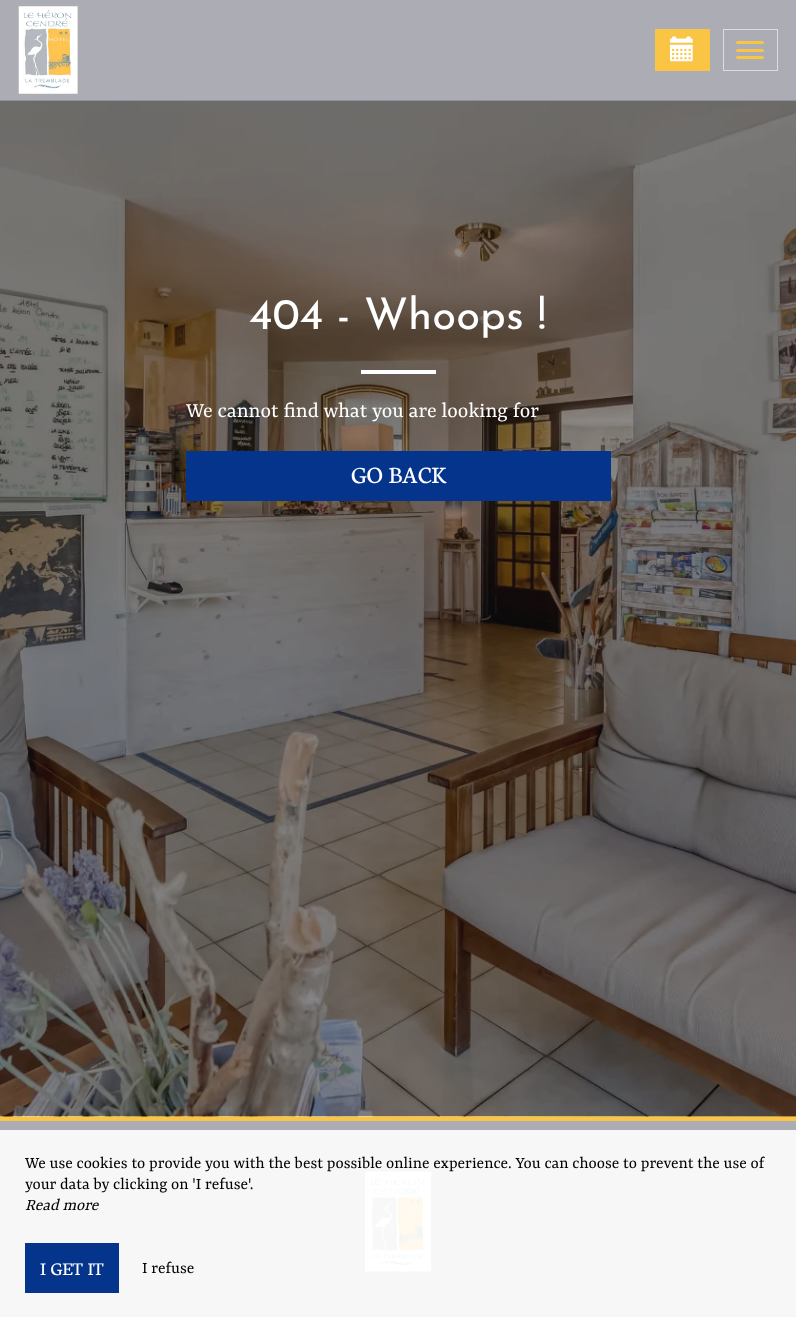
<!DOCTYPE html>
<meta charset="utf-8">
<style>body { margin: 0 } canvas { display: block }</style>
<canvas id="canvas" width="796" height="1317"></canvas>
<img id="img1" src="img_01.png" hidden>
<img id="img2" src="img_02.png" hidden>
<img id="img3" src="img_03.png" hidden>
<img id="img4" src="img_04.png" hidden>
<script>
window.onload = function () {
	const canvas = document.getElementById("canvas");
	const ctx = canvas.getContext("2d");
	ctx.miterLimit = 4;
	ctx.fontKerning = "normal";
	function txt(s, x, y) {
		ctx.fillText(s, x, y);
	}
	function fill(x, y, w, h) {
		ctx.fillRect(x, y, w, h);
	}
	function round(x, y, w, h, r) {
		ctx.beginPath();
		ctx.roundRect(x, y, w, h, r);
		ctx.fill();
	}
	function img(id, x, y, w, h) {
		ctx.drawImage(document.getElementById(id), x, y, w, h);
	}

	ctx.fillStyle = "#ACACB4";
	fill(0, 0, 796, 1317);
	ctx.fillStyle = "#F7F7F8";
	fill(0, 1130, 796, 187);
	ctx.fillStyle = "#91919C";
	fill(0, 100, 796, 1);
	img("img1", 18, 6, 60, 88);
	ctx.fillStyle = "#FAC445";
	fill(655, 29, 55, 42);
	img("img2", 670, 36, 23, 26);
	ctx.strokeStyle = "#DDDDDD";
	ctx.strokeRect(723.5, 29.5, 54, 41);
	round(736, 41, 28, 3, 1.5);
	round(736, 49, 28, 3, 1.5);
	round(736, 56, 28, 3, 1.5);
	fill(0, 1116, 796, 5);
	img("img3", 0, 101, 796, 1016);
	ctx.fillStyle = "#FFFFFF";
	fill(361, 370, 75, 4);
	ctx.fillStyle = "#04348C";
	fill(186, 451, 425, 50);
	img("img4", 365, 1171, 67, 101);
	fill(25, 1243, 94, 50);
	ctx.font = "43.75px Josefin Sans";
	ctx.fillStyle = "#FFFFFF";
	txt("404 - Whoops !", 249, 329);
	ctx.font = "22.5px Yrsa";
	txt("We cannot find what you are looking for", 186, 417);
	ctx.wordSpacing = "2px";
	ctx.font = "25px Neuton";
	txt("GO BACK", 351, 483);
	ctx.wordSpacing = "0px";
	ctx.font = "17.5px Yrsa";
	ctx.fillStyle = "#000000";
	txt("We use cookies to provide you with the best possible online experience. You can choose to prevent the use of", 25, 1168);
	txt("your data by clicking on 'I refuse'.", 25, 1189);
	ctx.font = "italic 17.5px Yrsa";
	txt("Read more", 25, 1210);
	ctx.wordSpacing = "2px";
	ctx.font = "19px Neuton";
	ctx.fillStyle = "#FFFFFF";
	txt("I GET IT", 40, 1275);
	ctx.wordSpacing = "0px";
	ctx.font = "17.5px Yrsa";
	ctx.fillStyle = "#000000";
	txt("I refuse", 142, 1273);
};
</script>
